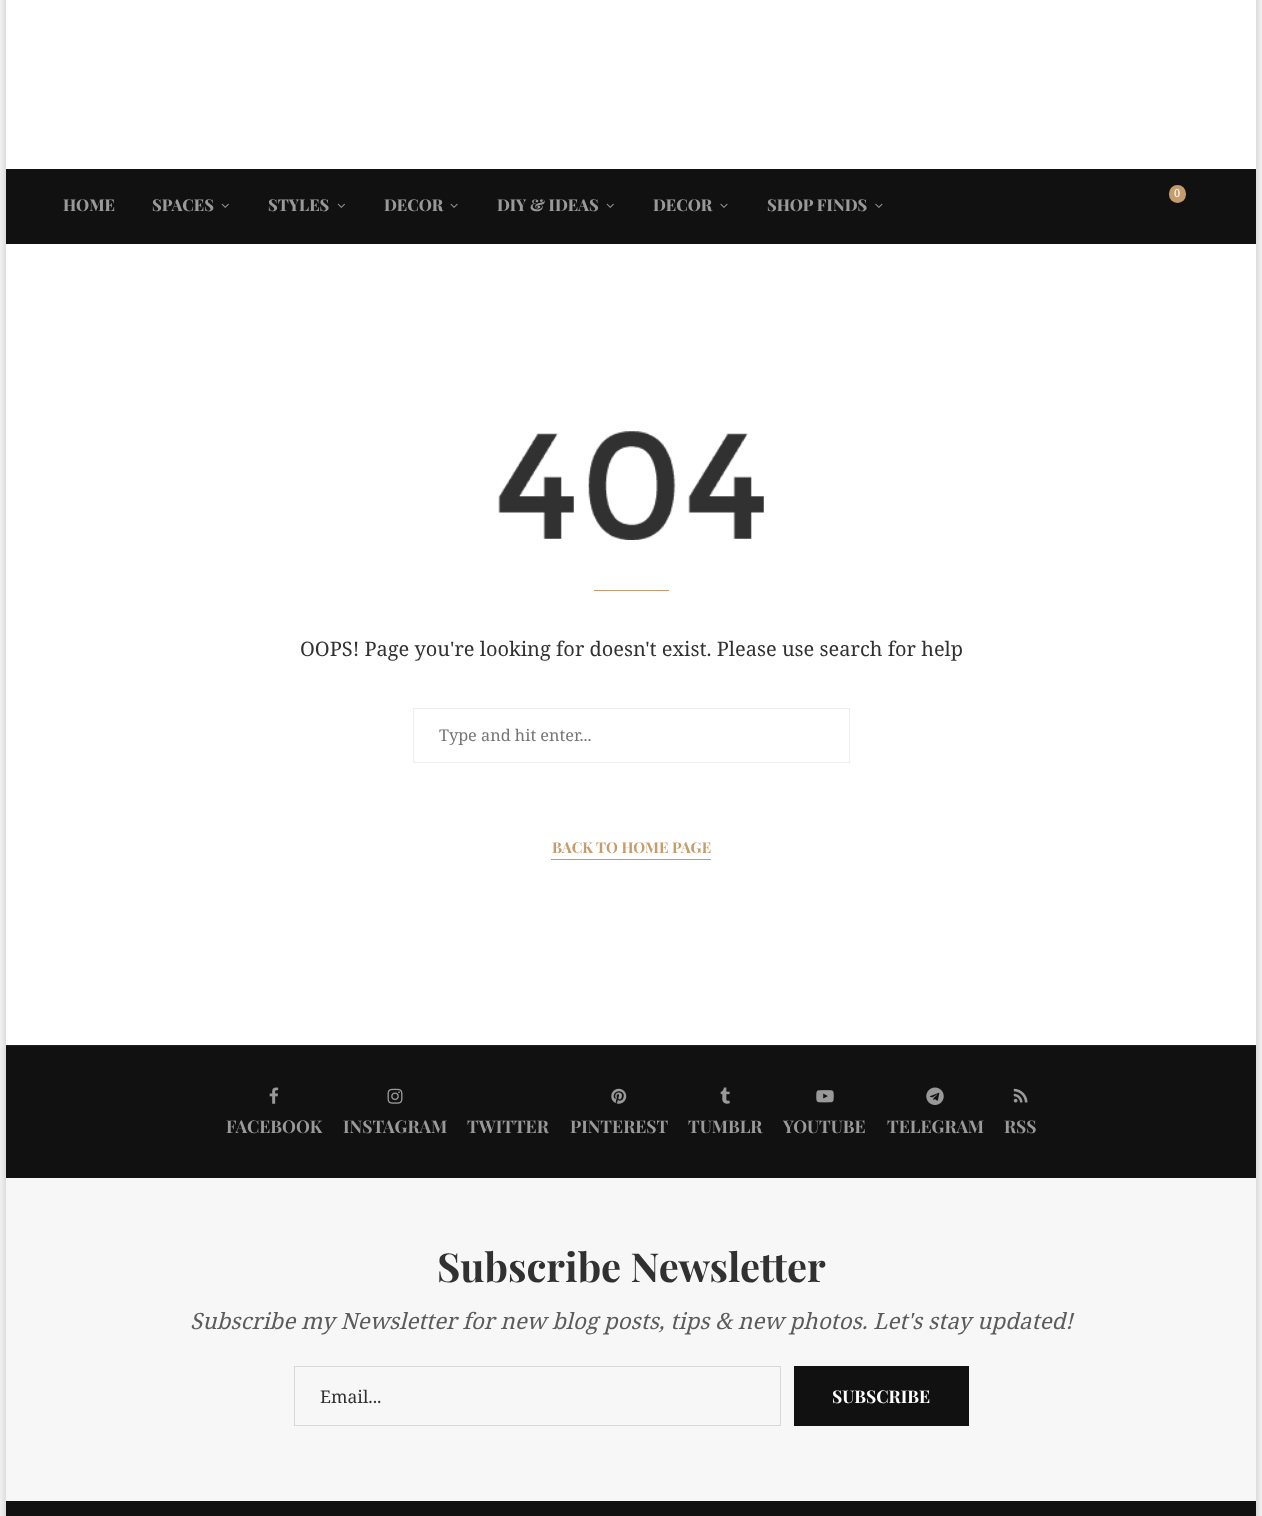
<!DOCTYPE html>
<meta charset="utf-8">
<style>body { margin: 0 } canvas { display: block }</style>
<canvas id="canvas" width="1262" height="1516"></canvas>
<img id="img1" src="img_01.png" hidden>
<img id="img2" src="img_02.png" hidden>
<img id="img3" src="img_03.png" hidden>
<img id="img4" src="img_04.png" hidden>
<img id="img5" src="img_05.png" hidden>
<img id="img6" src="img_06.png" hidden>
<img id="img7" src="img_07.png" hidden>
<img id="img8" src="img_08.png" hidden>
<img id="img9" src="img_09.png" hidden>
<img id="img10" src="img_10.png" hidden>
<img id="img11" src="img_11.png" hidden>
<img id="img12" src="img_12.png" hidden>
<img id="img13" src="img_13.png" hidden>
<img id="img14" src="img_14.png" hidden>
<script>
window.onload = function () {
	const canvas = document.getElementById("canvas");
	const ctx = canvas.getContext("2d");
	ctx.miterLimit = 4;
	ctx.fontKerning = "normal";
	function txt(s, x, y) {
		ctx.fillText(s, x, y);
	}
	function fill(x, y, w, h) {
		ctx.fillRect(x, y, w, h);
	}
	function round(x, y, w, h, r) {
		ctx.beginPath();
		ctx.roundRect(x, y, w, h, r);
		ctx.fill();
	}
	function img(id, x, y, w, h) {
		ctx.drawImage(document.getElementById(id), x, y, w, h);
	}

	ctx.fillStyle = "#F5F5F5";
	fill(0, 0, 1262, 1516);
	ctx.fillStyle = "rgba(0, 0, 0, 0.2)";
	ctx.filter = "blur(5px)";
	ctx.beginPath();
	ctx.rect(6, -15, 1250, 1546);
	ctx.fill();
	ctx.filter = "none";
	ctx.fillStyle = "#FFFFFF";
	fill(6, 0, 1250, 1045);
	ctx.fillStyle = "#111111";
	fill(6, 169, 1250, 75);
	ctx.fillStyle = "#C69C6D";
	round(1169, 185, 17, 18, 8.5);
	img("img1", 221, 203, 8, 5);
	img("img2", 337, 203, 8, 5);
	img("img3", 450, 203, 8, 5);
	img("img4", 606, 203, 8, 5);
	img("img5", 720, 203, 8, 5);
	img("img6", 875, 203, 8, 5);
	img("img7", 498, 431, 266, 109);
	fill(594, 590, 75, 1);
	ctx.strokeStyle = "#EEEEEE";
	ctx.strokeRect(413.5, 708.5, 436, 54);
	fill(551, 859, 160, 1);
	ctx.fillStyle = "#111111";
	fill(6, 1046, 1250, 132);
	ctx.fillStyle = "#212121";
	fill(6, 1045, 1250, 1);
	img("img8", 269, 1087, 10, 17);
	img("img9", 387, 1088, 16, 16);
	img("img10", 611, 1088, 16, 16);
	img("img11", 720, 1087, 10, 17);
	img("img12", 816, 1090, 18, 13);
	img("img13", 926, 1087, 18, 18);
	img("img14", 1013, 1088, 15, 15);
	ctx.fillStyle = "#F7F7F7";
	fill(6, 1178, 1250, 323);
	ctx.strokeStyle = "#D7D7DA";
	ctx.strokeRect(294.5, 1366.5, 486, 59);
	ctx.fillStyle = "#111111";
	fill(794, 1366, 175, 60);
	fill(6, 1501, 1250, 15);
	ctx.font = "11px Noto Serif Georgian";
	ctx.fillStyle = "#FFFFFF";
	txt("0", 1174, 197);
	ctx.font = "800 16.25px Playfair Display";
	ctx.fillStyle = "#999999";
	txt("HOME", 63, 211);
	txt("SPACES", 152, 211);
	txt("STYLES", 268, 211);
	txt("DECOR", 384, 211);
	txt("DIY & IDEAS", 497, 211);
	txt("DECOR", 653, 211);
	txt("SHOP FINDS", 767, 211);
	ctx.font = "20px Noto Serif Georgian";
	ctx.fillStyle = "#313131";
	txt("OOPS! Page you're looking for doesn't exist. Please use search for help", 300, 656);
	ctx.font = "16.25px Noto Serif Georgian";
	ctx.fillStyle = "#757575";
	txt("Type and hit enter...", 439, 741);
	ctx.font = "bold 15px Playfair Display";
	ctx.fillStyle = "#C69C6D";
	txt("BACK TO HOME PAGE", 552, 853);
	ctx.font = "bold 17.5px Playfair Display";
	ctx.fillStyle = "#999999";
	txt("FACEBOOK", 226, 1133);
	txt("INSTAGRAM", 343, 1133);
	txt("TWITTER", 467, 1133);
	txt("PINTEREST", 570, 1133);
	txt("TUMBLR", 688, 1133);
	txt("YOUTUBE", 783, 1133);
	txt("TELEGRAM", 887, 1133);
	txt("RSS", 1004, 1133);
	ctx.font = "bold 40px Playfair Display";
	ctx.fillStyle = "#313131";
	txt("Subscribe Newsletter", 437, 1282);
	ctx.font = "italic 22.5px Noto Serif Georgian";
	ctx.fillStyle = "#5C5C5E";
	txt("Subscribe my Newsletter for new blog posts, tips & new photos. Let's stay updated!", 190, 1329);
	ctx.font = "17.5px Noto Serif Georgian";
	ctx.fillStyle = "#313131";
	txt("Email...", 320, 1403);
	ctx.font = "bold 17.5px Playfair Display";
	ctx.fillStyle = "#FFFFFF";
	txt("SUBSCRIBE", 832, 1403);
};
</script>
